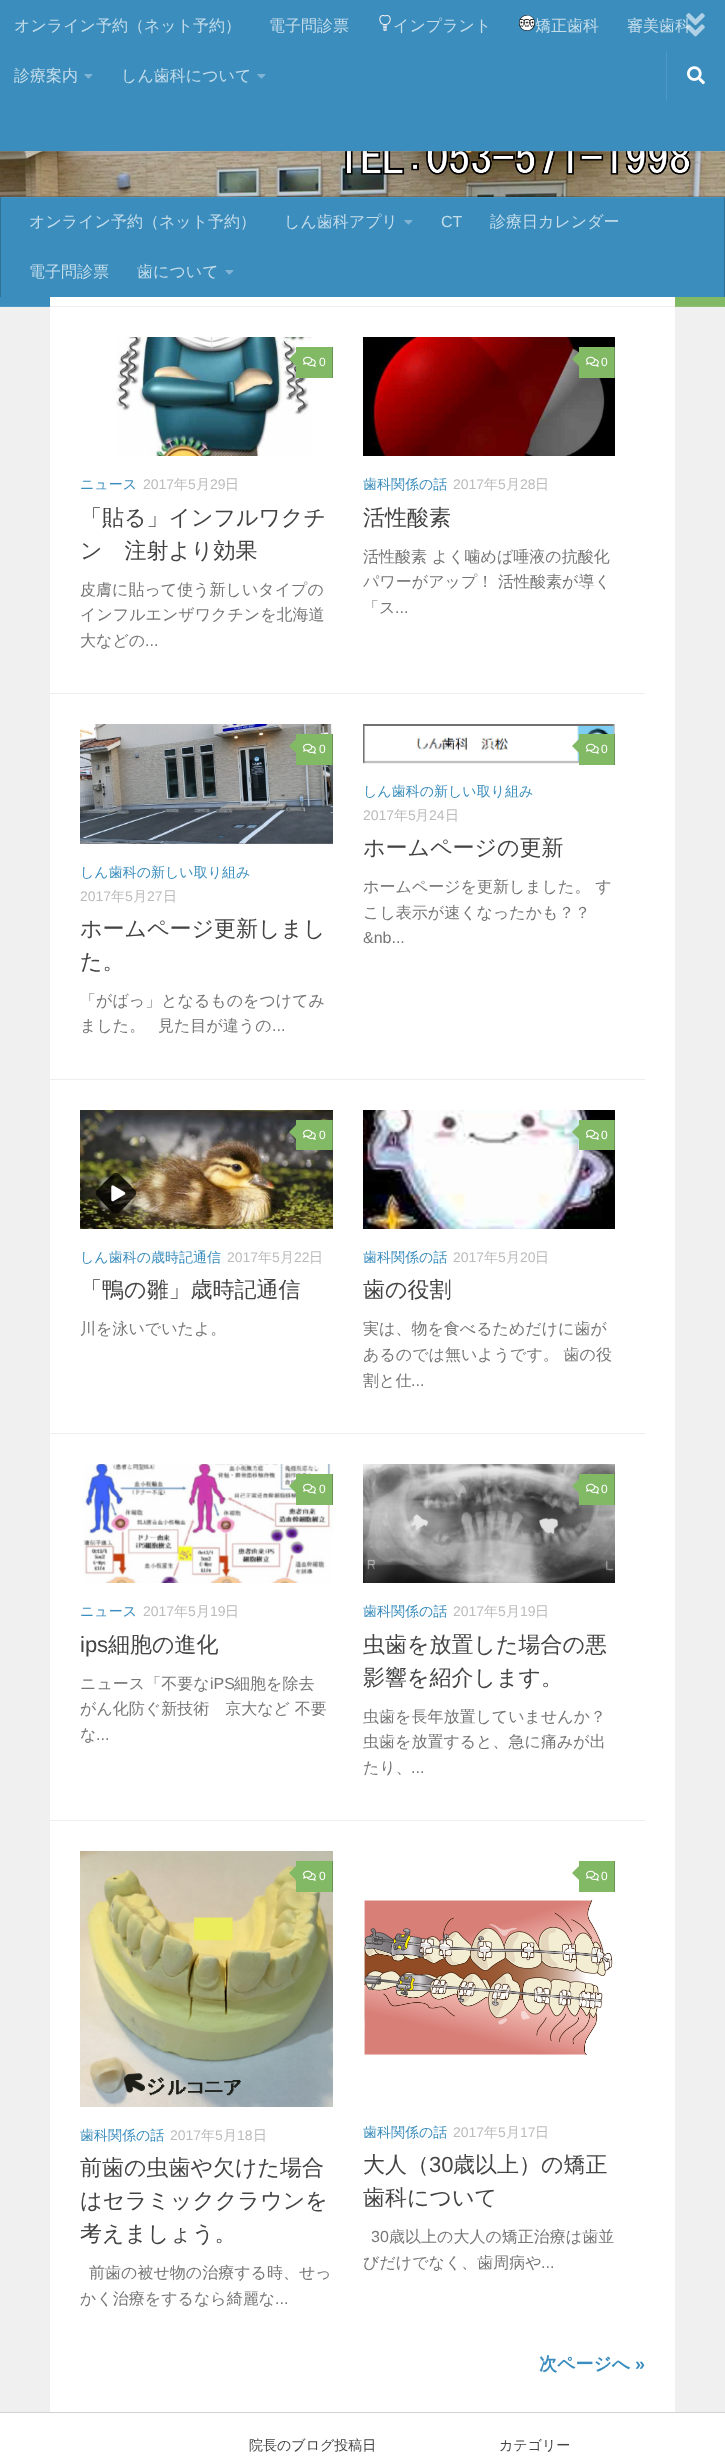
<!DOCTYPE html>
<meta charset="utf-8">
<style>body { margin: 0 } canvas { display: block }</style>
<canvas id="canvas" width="725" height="2458"></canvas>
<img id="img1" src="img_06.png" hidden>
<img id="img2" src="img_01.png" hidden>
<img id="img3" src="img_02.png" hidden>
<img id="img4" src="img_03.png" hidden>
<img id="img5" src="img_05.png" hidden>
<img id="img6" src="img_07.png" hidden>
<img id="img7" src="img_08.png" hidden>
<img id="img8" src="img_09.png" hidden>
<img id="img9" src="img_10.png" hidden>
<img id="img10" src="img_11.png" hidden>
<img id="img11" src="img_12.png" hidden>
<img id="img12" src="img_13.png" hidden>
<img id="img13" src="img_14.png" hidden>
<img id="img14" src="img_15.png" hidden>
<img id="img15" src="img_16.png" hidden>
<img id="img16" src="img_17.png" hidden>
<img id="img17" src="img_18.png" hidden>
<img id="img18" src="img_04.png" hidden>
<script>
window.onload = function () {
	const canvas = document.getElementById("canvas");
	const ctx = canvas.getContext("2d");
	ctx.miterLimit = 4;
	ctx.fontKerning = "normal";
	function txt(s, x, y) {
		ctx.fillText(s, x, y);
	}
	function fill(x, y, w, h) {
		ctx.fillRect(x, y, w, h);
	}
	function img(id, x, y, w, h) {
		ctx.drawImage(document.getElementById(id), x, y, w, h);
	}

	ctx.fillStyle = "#EAEAEA";
	fill(0, 0, 725, 2458);
	img("img1", 0, 151, 725, 46);
	ctx.fillStyle = "rgba(255, 255, 255, 0.15)";
	fill(0, 151, 725, 1);
	ctx.fillStyle = "rgba(0, 0, 0, 0.2)";
	ctx.filter = "blur(2.5px)";
	ctx.beginPath();
	ctx.rect(0, 0, 725, 151);
	ctx.fill();
	ctx.filter = "none";
	ctx.fillStyle = "#3B8DBD";
	fill(0, 0, 725, 151);
	img("img2", 379, 15, 12, 16);
	img("img3", 519, 15, 16, 16);
	img("img4", 84, 74, 9, 5);
	img("img4", 257, 74, 9, 5);
	ctx.fillStyle = "#4F98C4";
	fill(666, 51, 1, 50);
	img("img5", 687, 66, 18, 19);
	ctx.fillStyle = "rgba(0, 0, 0, 0.2)";
	fill(0, 196, 725, 1);
	ctx.fillStyle = "rgba(0, 0, 0, 0.1)";
	ctx.filter = "blur(0.5px)";
	ctx.beginPath();
	ctx.rect(0, 248, 725, 2165);
	ctx.fill();
	ctx.filter = "none";
	ctx.fillStyle = "#3B8DBD";
	fill(1, 198, 723, 99);
	ctx.fillStyle = "#4593C0";
	fill(0, 197, 725, 1);
	ctx.fillStyle = "#2F7197";
	fill(724, 197, 1, 100);
	ctx.fillStyle = "#39789C";
	fill(724, 197, 1, 1);
	ctx.fillStyle = "#2F7197";
	fill(0, 197, 1, 100);
	ctx.fillStyle = "#39789C";
	fill(0, 197, 1, 1);
	img("img4", 404, 220, 9, 5);
	img("img4", 225, 270, 9, 5);
	ctx.fillStyle = "#FFFFFF";
	fill(50, 297, 625, 2115);
	ctx.fillStyle = "#F0F0F0";
	fill(0, 307, 50, 2105);
	ctx.fillStyle = "#3B8DBD";
	fill(0, 297, 50, 9);
	ctx.fillStyle = "#4F98C4";
	fill(0, 306, 50, 1);
	ctx.fillStyle = "#82B965";
	fill(675, 297, 50, 9);
	ctx.fillStyle = "#8FC074";
	fill(675, 306, 50, 1);
	ctx.fillStyle = "#EEEEEE";
	fill(50, 306, 625, 1);
	fill(50, 693, 595, 1);
	img("img6", 116, 337, 196, 119);
	ctx.fillStyle = "#82B965";
	fill(296, 347, 36, 31);
	ctx.fillStyle = "#689451";
	fill(332, 347, 1, 31);
	ctx.fillStyle = "#82B965";
	ctx.beginPath();
	ctx.moveTo(298, 350);
	ctx.lineTo(298, 368);
	ctx.lineTo(289, 359);
	ctx.closePath();
	ctx.fill();
	img("img7", 303, 356, 13, 11);
	img("img8", 363, 337, 252, 119);
	fill(579, 347, 35, 31);
	ctx.fillStyle = "#689451";
	fill(614, 347, 1, 31);
	ctx.fillStyle = "#82B965";
	ctx.beginPath();
	ctx.moveTo(581, 350);
	ctx.lineTo(581, 368);
	ctx.lineTo(572, 359);
	ctx.closePath();
	ctx.fill();
	img("img7", 586, 356, 13, 11);
	ctx.fillStyle = "#EEEEEE";
	fill(50, 1079, 595, 1);
	img("img9", 80, 724, 253, 120);
	ctx.fillStyle = "#82B965";
	fill(296, 734, 36, 31);
	ctx.fillStyle = "#689451";
	fill(332, 734, 1, 31);
	ctx.fillStyle = "#82B965";
	ctx.beginPath();
	ctx.moveTo(298, 737);
	ctx.lineTo(298, 755);
	ctx.lineTo(289, 746);
	ctx.closePath();
	ctx.fill();
	img("img7", 303, 743, 13, 11);
	img("img10", 363, 724, 252, 40);
	fill(579, 734, 35, 31);
	ctx.fillStyle = "#689451";
	fill(614, 734, 1, 31);
	ctx.fillStyle = "#82B965";
	ctx.beginPath();
	ctx.moveTo(581, 737);
	ctx.lineTo(581, 755);
	ctx.lineTo(572, 746);
	ctx.closePath();
	ctx.fill();
	img("img7", 586, 743, 13, 11);
	ctx.fillStyle = "#EEEEEE";
	fill(50, 1433, 595, 1);
	img("img11", 80, 1110, 253, 119);
	ctx.save();
	ctx.beginPath();
	ctx.moveTo(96, 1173);
	ctx.lineTo(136, 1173);
	ctx.lineTo(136, 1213);
	ctx.lineTo(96, 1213);
	ctx.closePath();
	ctx.moveTo(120, 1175);
	ctx.lineTo(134.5, 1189);
	ctx.bezierCurveTo(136.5, 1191, 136.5, 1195, 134.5, 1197.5);
	ctx.lineTo(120, 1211.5);
	ctx.bezierCurveTo(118, 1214, 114, 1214, 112, 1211.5);
	ctx.lineTo(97.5, 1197.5);
	ctx.bezierCurveTo(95.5, 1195, 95.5, 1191, 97.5, 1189);
	ctx.lineTo(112, 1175);
	ctx.bezierCurveTo(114, 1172.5, 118, 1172.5, 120, 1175);
	ctx.closePath();
	ctx.clip("evenodd");
	ctx.fillStyle = "rgba(255, 255, 255, 0.4)";
	ctx.filter = "blur(1px)";
	ctx.beginPath();
	ctx.roundRect(100, 1177, 32, 32, 6);
	ctx.fill();
	ctx.filter = "none";
	ctx.restore();
	ctx.fillStyle = "rgba(0, 0, 0, 0.7)";
	ctx.beginPath();
	ctx.moveTo(120, 1175);
	ctx.lineTo(134, 1189);
	ctx.bezierCurveTo(137, 1191, 137, 1195, 134, 1197);
	ctx.lineTo(120, 1212);
	ctx.bezierCurveTo(118, 1214, 114, 1214, 112, 1212);
	ctx.lineTo(98, 1197);
	ctx.bezierCurveTo(95, 1195, 95, 1191, 98, 1189);
	ctx.lineTo(112, 1175);
	ctx.bezierCurveTo(114, 1172, 118, 1172, 120, 1175);
	ctx.closePath();
	ctx.fill();
	img("img12", 111, 1185, 15, 17);
	ctx.fillStyle = "#82B965";
	fill(296, 1120, 36, 30);
	ctx.fillStyle = "#689451";
	fill(332, 1120, 1, 30);
	ctx.fillStyle = "#82B965";
	ctx.beginPath();
	ctx.moveTo(298, 1123);
	ctx.lineTo(298, 1141);
	ctx.lineTo(289, 1132);
	ctx.closePath();
	ctx.fill();
	img("img7", 303, 1129, 13, 11);
	img("img13", 363, 1110, 252, 119);
	fill(579, 1120, 35, 30);
	ctx.fillStyle = "#689451";
	fill(614, 1120, 1, 30);
	ctx.fillStyle = "#82B965";
	ctx.beginPath();
	ctx.moveTo(581, 1123);
	ctx.lineTo(581, 1141);
	ctx.lineTo(572, 1132);
	ctx.closePath();
	ctx.fill();
	img("img7", 586, 1129, 13, 11);
	ctx.fillStyle = "#EEEEEE";
	fill(50, 1820, 595, 1);
	img("img14", 83, 1464, 250, 119);
	ctx.fillStyle = "#82B965";
	fill(296, 1474, 36, 31);
	ctx.fillStyle = "#689451";
	fill(332, 1474, 1, 31);
	ctx.fillStyle = "#82B965";
	ctx.beginPath();
	ctx.moveTo(298, 1477);
	ctx.lineTo(298, 1495);
	ctx.lineTo(289, 1486);
	ctx.closePath();
	ctx.fill();
	img("img7", 303, 1483, 13, 11);
	img("img15", 363, 1464, 252, 119);
	fill(579, 1474, 35, 31);
	ctx.fillStyle = "#689451";
	fill(614, 1474, 1, 31);
	ctx.fillStyle = "#82B965";
	ctx.beginPath();
	ctx.moveTo(581, 1477);
	ctx.lineTo(581, 1495);
	ctx.lineTo(572, 1486);
	ctx.closePath();
	ctx.fill();
	img("img7", 586, 1483, 13, 11);
	img("img16", 80, 1851, 253, 256);
	fill(296, 1861, 36, 31);
	ctx.fillStyle = "#689451";
	fill(332, 1861, 1, 31);
	ctx.fillStyle = "#82B965";
	ctx.beginPath();
	ctx.moveTo(298, 1864);
	ctx.lineTo(298, 1882);
	ctx.lineTo(289, 1873);
	ctx.closePath();
	ctx.fill();
	img("img7", 303, 1870, 13, 11);
	fill(579, 1861, 35, 31);
	ctx.fillStyle = "#689451";
	fill(614, 1861, 1, 31);
	ctx.fillStyle = "#82B965";
	ctx.beginPath();
	ctx.moveTo(581, 1864);
	ctx.lineTo(581, 1882);
	ctx.lineTo(572, 1873);
	ctx.closePath();
	ctx.fill();
	img("img7", 586, 1870, 13, 11);
	img("img17", 364, 1900, 249, 155);
	ctx.fillStyle = "#F0F0F0";
	fill(675, 307, 50, 2105);
	ctx.fillStyle = "#FFFFFF";
	fill(0, 2413, 725, 45);
	ctx.font = "500 16px WenQuanYi Zen Hei";
	ctx.fillStyle = "#C4DDEB";
	txt("オンライン予約（ネット予約）", 14, 31);
	txt("電子問診票", 269, 31);
	txt("インプラント", 393, 31);
	txt("矯正歯科", 535, 31);
	txt("審美歯科", 627, 31);
	txt("診療案内", 14, 81);
	txt("しん歯科について", 121, 81);
	img("img18", 686, 13, 19, 24);
	txt("オンライン予約（ネット予約）", 29, 227);
	txt("しん歯科アプリ", 284, 227);
	ctx.font = "16px Liberation Sans";
	txt("CT", 441, 227);
	ctx.font = "500 16px WenQuanYi Zen Hei";
	txt("診療日カレンダー", 490, 227);
	txt("電子問診票", 29, 277);
	txt("歯について", 137, 277);
	ctx.font = "12px Liberation Sans";
	ctx.fillStyle = "#FFFFFF";
	txt("0", 319, 366);
	ctx.font = "500 14px WenQuanYi Zen Hei";
	ctx.fillStyle = "#3B8DBD";
	txt("ニュース", 80, 489);
	ctx.font = "14px Liberation Sans";
	ctx.fillStyle = "#BBBBBB";
	txt("2017", 143, 489);
	ctx.font = "500 14px WenQuanYi Zen Hei";
	txt("年", 174, 489);
	ctx.font = "14px Liberation Sans";
	txt("5", 188, 489);
	ctx.font = "500 14px WenQuanYi Zen Hei";
	txt("月", 196, 489);
	ctx.font = "14px Liberation Sans";
	txt("29", 210, 489);
	ctx.font = "500 14px WenQuanYi Zen Hei";
	txt("日", 225, 489);
	ctx.font = "500 22px WenQuanYi Zen Hei";
	ctx.fillStyle = "#444444";
	txt("「貼る」インフルワクチ", 80, 525);
	txt("ン　注射より効果", 80, 558);
	ctx.font = "500 16px WenQuanYi Zen Hei";
	ctx.fillStyle = "#767676";
	txt("皮膚に貼って使う新しいタイプの", 80, 595);
	txt("インフルエンザワクチンを北海道", 80, 620);
	txt("大などの", 80, 646);
	ctx.font = "16px Liberation Sans";
	txt("...", 145, 646);
	ctx.font = "12px Liberation Sans";
	ctx.fillStyle = "#FFFFFF";
	txt("0", 601, 366);
	ctx.font = "500 14px WenQuanYi Zen Hei";
	ctx.fillStyle = "#3B8DBD";
	txt("歯科関係の話", 363, 489);
	ctx.font = "14px Liberation Sans";
	ctx.fillStyle = "#BBBBBB";
	txt("2017", 453, 489);
	ctx.font = "500 14px WenQuanYi Zen Hei";
	txt("年", 484, 489);
	ctx.font = "14px Liberation Sans";
	txt("5", 498, 489);
	ctx.font = "500 14px WenQuanYi Zen Hei";
	txt("月", 506, 489);
	ctx.font = "14px Liberation Sans";
	txt("28", 520, 489);
	ctx.font = "500 14px WenQuanYi Zen Hei";
	txt("日", 535, 489);
	ctx.font = "500 22px WenQuanYi Zen Hei";
	ctx.fillStyle = "#444444";
	txt("活性酸素", 363, 525);
	ctx.font = "500 16px WenQuanYi Zen Hei";
	ctx.fillStyle = "#767676";
	txt("活性酸素 よく噛めば唾液の抗酸化", 363, 562);
	txt("パワーがアップ！ 活性酸素が導く", 363, 587);
	txt("「ス", 363, 613);
	ctx.font = "16px Liberation Sans";
	txt("...", 395, 613);
	ctx.font = "12px Liberation Sans";
	ctx.fillStyle = "#FFFFFF";
	txt("0", 319, 753);
	ctx.font = "500 14px WenQuanYi Zen Hei";
	ctx.fillStyle = "#3B8DBD";
	txt("しん歯科の新しい取り組み", 80, 877);
	ctx.font = "14px Liberation Sans";
	ctx.fillStyle = "#BBBBBB";
	txt("2017", 80, 901);
	ctx.font = "500 14px WenQuanYi Zen Hei";
	txt("年", 111, 901);
	ctx.font = "14px Liberation Sans";
	txt("5", 125, 901);
	ctx.font = "500 14px WenQuanYi Zen Hei";
	txt("月", 133, 901);
	ctx.font = "14px Liberation Sans";
	txt("27", 147, 901);
	ctx.font = "500 14px WenQuanYi Zen Hei";
	txt("日", 163, 901);
	ctx.font = "500 22px WenQuanYi Zen Hei";
	ctx.fillStyle = "#444444";
	txt("ホームページ更新しまし", 80, 936);
	txt("た。", 80, 969);
	ctx.font = "500 16px WenQuanYi Zen Hei";
	ctx.fillStyle = "#767676";
	txt("「がばっ」となるものをつけてみ", 80, 1006);
	txt("ました。", 80, 1031);
	txt("見た目が違うの", 158, 1031);
	ctx.font = "16px Liberation Sans";
	txt("...", 272, 1031);
	ctx.font = "12px Liberation Sans";
	ctx.fillStyle = "#FFFFFF";
	txt("0", 601, 753);
	ctx.font = "500 14px WenQuanYi Zen Hei";
	ctx.fillStyle = "#3B8DBD";
	txt("しん歯科の新しい取り組み", 363, 796);
	ctx.font = "14px Liberation Sans";
	ctx.fillStyle = "#BBBBBB";
	txt("2017", 363, 820);
	ctx.font = "500 14px WenQuanYi Zen Hei";
	txt("年", 394, 820);
	ctx.font = "14px Liberation Sans";
	txt("5", 408, 820);
	ctx.font = "500 14px WenQuanYi Zen Hei";
	txt("月", 415, 820);
	ctx.font = "14px Liberation Sans";
	txt("24", 429, 820);
	ctx.font = "500 14px WenQuanYi Zen Hei";
	txt("日", 445, 820);
	ctx.font = "500 22px WenQuanYi Zen Hei";
	ctx.fillStyle = "#444444";
	txt("ホームページの更新", 363, 855);
	ctx.font = "500 16px WenQuanYi Zen Hei";
	ctx.fillStyle = "#767676";
	txt("ホームページを更新しました。 す", 363, 892);
	txt("こし表示が速くなったかも？？", 363, 918);
	ctx.font = "16px Liberation Sans";
	txt("&nb...", 363, 943);
	ctx.font = "12px Liberation Sans";
	ctx.fillStyle = "#FFFFFF";
	txt("0", 319, 1139);
	ctx.font = "500 14px WenQuanYi Zen Hei";
	ctx.fillStyle = "#3B8DBD";
	txt("しん歯科の歳時記通信", 80, 1262);
	ctx.font = "14px Liberation Sans";
	ctx.fillStyle = "#BBBBBB";
	txt("2017", 227, 1262);
	ctx.font = "500 14px WenQuanYi Zen Hei";
	txt("年", 258, 1262);
	ctx.font = "14px Liberation Sans";
	txt("5", 272, 1262);
	ctx.font = "500 14px WenQuanYi Zen Hei";
	txt("月", 280, 1262);
	ctx.font = "14px Liberation Sans";
	txt("22", 294, 1262);
	ctx.font = "500 14px WenQuanYi Zen Hei";
	txt("日", 309, 1262);
	ctx.font = "500 22px WenQuanYi Zen Hei";
	ctx.fillStyle = "#444444";
	txt("「鴨の雛」歳時記通信", 80, 1297);
	ctx.font = "500 16px WenQuanYi Zen Hei";
	ctx.fillStyle = "#767676";
	txt("川を泳いでいたよ。", 80, 1334);
	ctx.font = "12px Liberation Sans";
	ctx.fillStyle = "#FFFFFF";
	txt("0", 601, 1139);
	ctx.font = "500 14px WenQuanYi Zen Hei";
	ctx.fillStyle = "#3B8DBD";
	txt("歯科関係の話", 363, 1262);
	ctx.font = "14px Liberation Sans";
	ctx.fillStyle = "#BBBBBB";
	txt("2017", 453, 1262);
	ctx.font = "500 14px WenQuanYi Zen Hei";
	txt("年", 484, 1262);
	ctx.font = "14px Liberation Sans";
	txt("5", 498, 1262);
	ctx.font = "500 14px WenQuanYi Zen Hei";
	txt("月", 506, 1262);
	ctx.font = "14px Liberation Sans";
	txt("20", 520, 1262);
	ctx.font = "500 14px WenQuanYi Zen Hei";
	txt("日", 535, 1262);
	ctx.font = "500 22px WenQuanYi Zen Hei";
	ctx.fillStyle = "#444444";
	txt("歯の役割", 363, 1297);
	ctx.font = "500 16px WenQuanYi Zen Hei";
	ctx.fillStyle = "#767676";
	txt("実は、物を食べるためだけに歯が", 363, 1334);
	txt("あるのでは無いようです。 歯の役", 363, 1360);
	txt("割と仕", 363, 1386);
	ctx.font = "16px Liberation Sans";
	txt("...", 411, 1386);
	ctx.font = "12px Liberation Sans";
	ctx.fillStyle = "#FFFFFF";
	txt("0", 319, 1493);
	ctx.font = "500 14px WenQuanYi Zen Hei";
	ctx.fillStyle = "#3B8DBD";
	txt("ニュース", 80, 1616);
	ctx.font = "14px Liberation Sans";
	ctx.fillStyle = "#BBBBBB";
	txt("2017", 143, 1616);
	ctx.font = "500 14px WenQuanYi Zen Hei";
	txt("年", 174, 1616);
	ctx.font = "14px Liberation Sans";
	txt("5", 188, 1616);
	ctx.font = "500 14px WenQuanYi Zen Hei";
	txt("月", 196, 1616);
	ctx.font = "14px Liberation Sans";
	txt("19", 210, 1616);
	ctx.font = "500 14px WenQuanYi Zen Hei";
	txt("日", 225, 1616);
	ctx.font = "22px Liberation Sans";
	ctx.fillStyle = "#444444";
	txt("ips", 80, 1652);
	ctx.font = "500 22px WenQuanYi Zen Hei";
	txt("細胞の進化", 108, 1652);
	ctx.font = "500 16px WenQuanYi Zen Hei";
	ctx.fillStyle = "#767676";
	txt("ニュース「不要な", 80, 1689);
	ctx.font = "16px Liberation Sans";
	txt("iPS", 210, 1689);
	ctx.font = "500 16px WenQuanYi Zen Hei";
	txt("細胞を除去", 234, 1689);
	txt("がん化防ぐ新技術　京大など 不要", 80, 1714);
	txt("な", 80, 1740);
	ctx.font = "16px Liberation Sans";
	txt("...", 96, 1740);
	ctx.font = "12px Liberation Sans";
	ctx.fillStyle = "#FFFFFF";
	txt("0", 601, 1493);
	ctx.font = "500 14px WenQuanYi Zen Hei";
	ctx.fillStyle = "#3B8DBD";
	txt("歯科関係の話", 363, 1616);
	ctx.font = "14px Liberation Sans";
	ctx.fillStyle = "#BBBBBB";
	txt("2017", 453, 1616);
	ctx.font = "500 14px WenQuanYi Zen Hei";
	txt("年", 484, 1616);
	ctx.font = "14px Liberation Sans";
	txt("5", 498, 1616);
	ctx.font = "500 14px WenQuanYi Zen Hei";
	txt("月", 506, 1616);
	ctx.font = "14px Liberation Sans";
	txt("19", 520, 1616);
	ctx.font = "500 14px WenQuanYi Zen Hei";
	txt("日", 535, 1616);
	ctx.font = "500 22px WenQuanYi Zen Hei";
	ctx.fillStyle = "#444444";
	txt("虫歯を放置した場合の悪", 363, 1652);
	txt("影響を紹介します。", 363, 1685);
	ctx.font = "500 16px WenQuanYi Zen Hei";
	ctx.fillStyle = "#767676";
	txt("虫歯を長年放置していませんか？", 363, 1722);
	txt("虫歯を放置すると、急に痛みが出", 363, 1747);
	txt("たり、", 363, 1773);
	ctx.font = "16px Liberation Sans";
	txt("...", 411, 1773);
	ctx.font = "12px Liberation Sans";
	ctx.fillStyle = "#FFFFFF";
	txt("0", 319, 1880);
	ctx.font = "500 14px WenQuanYi Zen Hei";
	ctx.fillStyle = "#3B8DBD";
	txt("歯科関係の話", 80, 2140);
	ctx.font = "14px Liberation Sans";
	ctx.fillStyle = "#BBBBBB";
	txt("2017", 170, 2140);
	ctx.font = "500 14px WenQuanYi Zen Hei";
	txt("年", 201, 2140);
	ctx.font = "14px Liberation Sans";
	txt("5", 215, 2140);
	ctx.font = "500 14px WenQuanYi Zen Hei";
	txt("月", 223, 2140);
	ctx.font = "14px Liberation Sans";
	txt("18", 237, 2140);
	ctx.font = "500 14px WenQuanYi Zen Hei";
	txt("日", 253, 2140);
	ctx.font = "500 22px WenQuanYi Zen Hei";
	ctx.fillStyle = "#444444";
	txt("前歯の虫歯や欠けた場合", 80, 2175);
	txt("はセラミッククラウンを", 80, 2208);
	txt("考えましょう。", 80, 2241);
	ctx.font = "500 16px WenQuanYi Zen Hei";
	ctx.fillStyle = "#767676";
	txt("前歯の被せ物の治療する時、せっ", 89, 2278);
	txt("かく治療をするなら綺麗な", 80, 2304);
	ctx.font = "16px Liberation Sans";
	txt("...", 275, 2304);
	ctx.font = "12px Liberation Sans";
	ctx.fillStyle = "#FFFFFF";
	txt("0", 601, 1880);
	ctx.font = "500 14px WenQuanYi Zen Hei";
	ctx.fillStyle = "#3B8DBD";
	txt("歯科関係の話", 363, 2137);
	ctx.font = "14px Liberation Sans";
	ctx.fillStyle = "#BBBBBB";
	txt("2017", 453, 2137);
	ctx.font = "500 14px WenQuanYi Zen Hei";
	txt("年", 484, 2137);
	ctx.font = "14px Liberation Sans";
	txt("5", 498, 2137);
	ctx.font = "500 14px WenQuanYi Zen Hei";
	txt("月", 506, 2137);
	ctx.font = "14px Liberation Sans";
	txt("17", 520, 2137);
	ctx.font = "500 14px WenQuanYi Zen Hei";
	txt("日", 535, 2137);
	ctx.font = "500 22px WenQuanYi Zen Hei";
	ctx.fillStyle = "#444444";
	txt("大人（", 363, 2172);
	ctx.font = "22px Liberation Sans";
	txt("30", 429, 2172);
	ctx.font = "500 22px WenQuanYi Zen Hei";
	txt("歳以上）の矯正", 453, 2172);
	txt("歯科について", 363, 2205);
	ctx.font = "16px Liberation Sans";
	ctx.fillStyle = "#767676";
	txt("30", 371, 2242);
	ctx.font = "500 16px WenQuanYi Zen Hei";
	txt("歳以上の大人の矯正治療は歯並", 389, 2242);
	txt("びだけでなく、歯周病や", 363, 2268);
	ctx.font = "16px Liberation Sans";
	txt("...", 541, 2268);
	ctx.font = "bold 18px WenQuanYi Zen Hei";
	ctx.fillStyle = "#3B8DBD";
	txt("次ページへ", 539, 2370);
	ctx.font = "bold 18px Liberation Sans";
	txt("»", 635, 2370);
	ctx.font = "500 14px WenQuanYi Zen Hei";
	ctx.fillStyle = "#444444";
	txt("院長のブログ投稿日", 249, 2450);
	txt("カテゴリー", 499, 2450);
};
</script>
